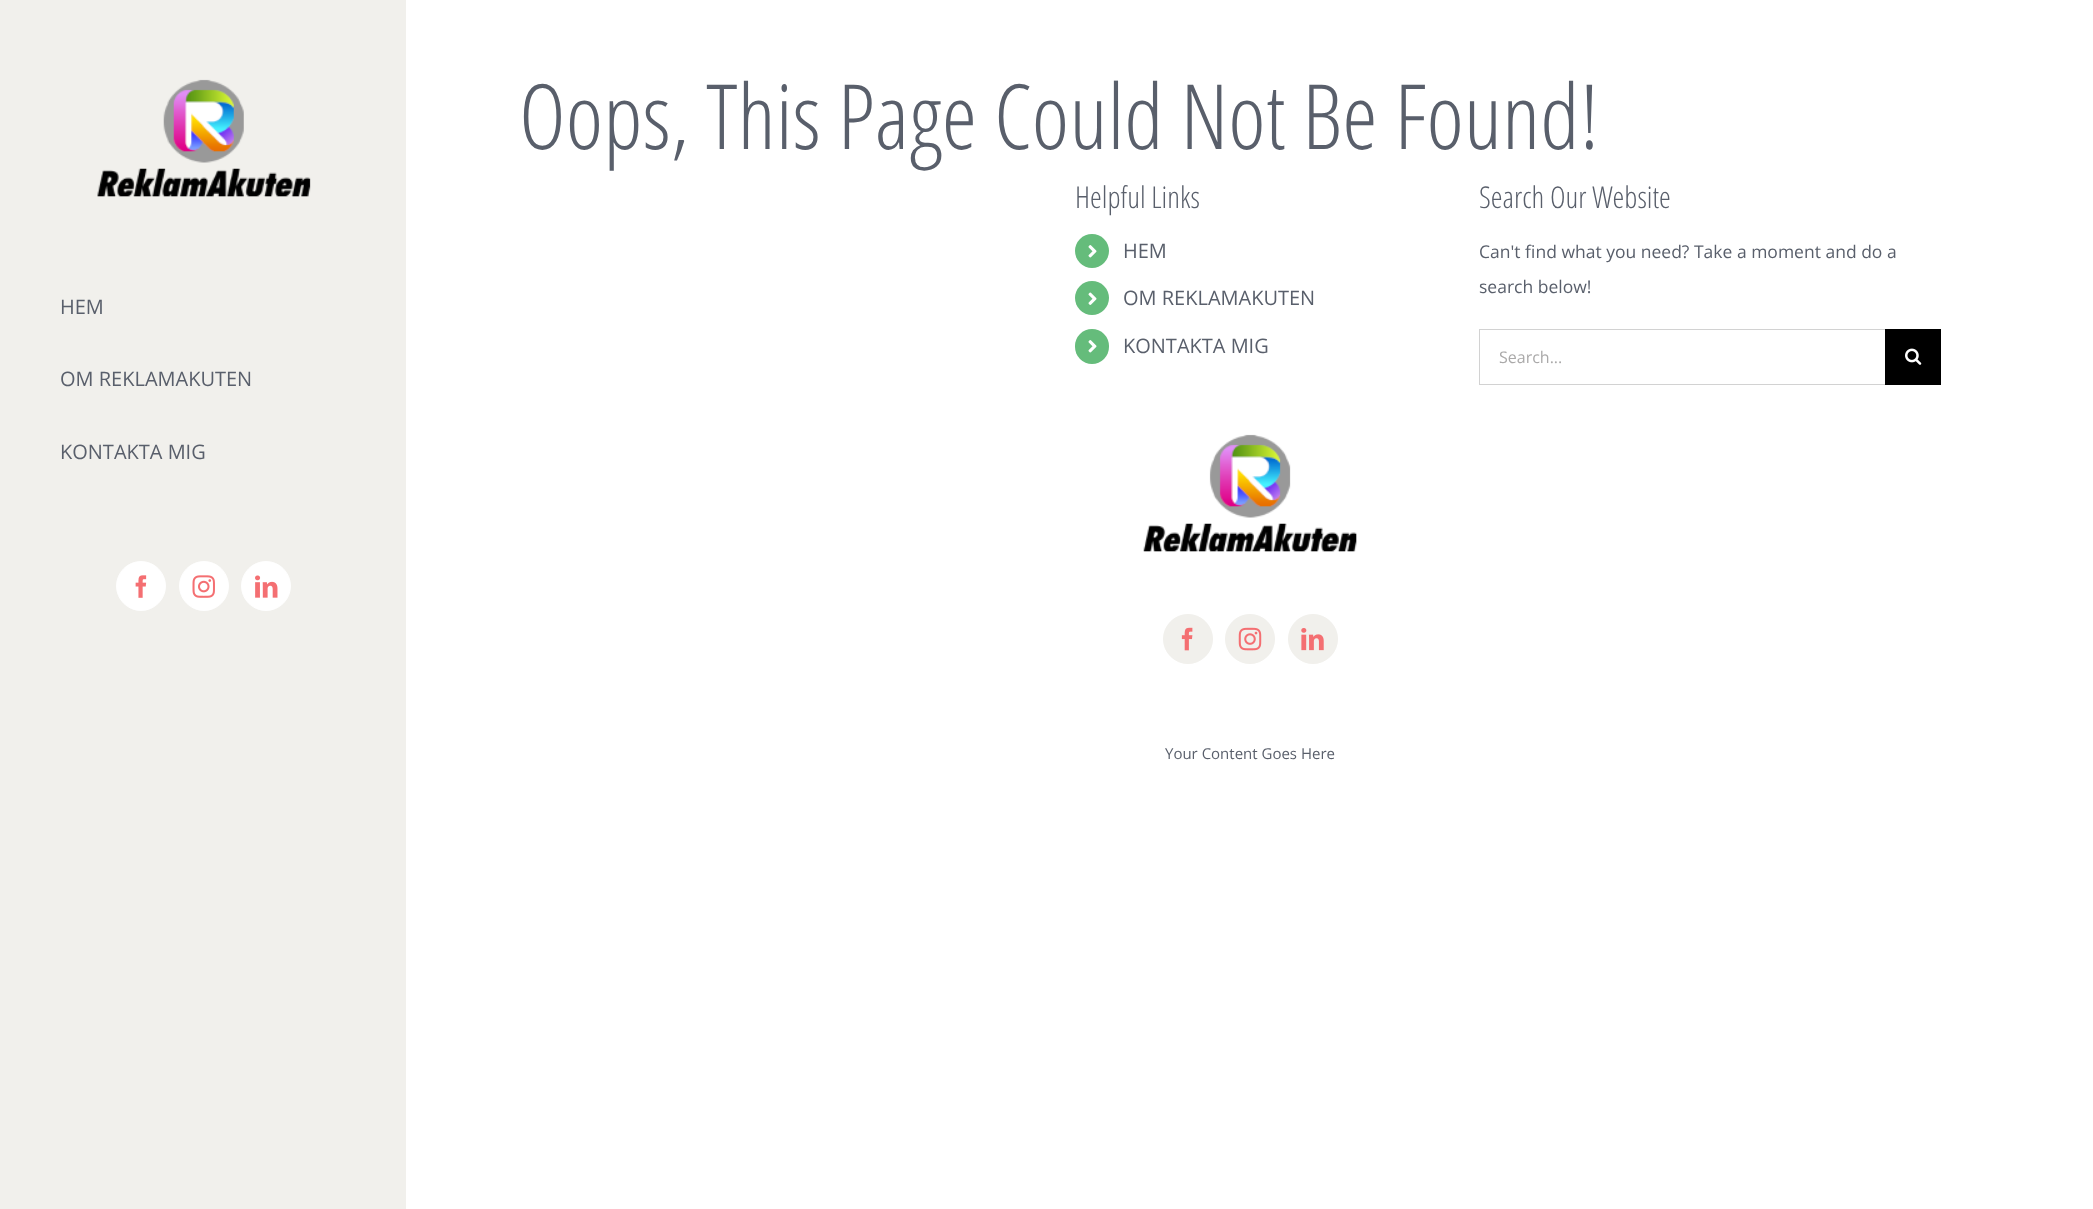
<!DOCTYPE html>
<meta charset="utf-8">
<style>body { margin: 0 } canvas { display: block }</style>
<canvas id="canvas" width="2093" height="1209"></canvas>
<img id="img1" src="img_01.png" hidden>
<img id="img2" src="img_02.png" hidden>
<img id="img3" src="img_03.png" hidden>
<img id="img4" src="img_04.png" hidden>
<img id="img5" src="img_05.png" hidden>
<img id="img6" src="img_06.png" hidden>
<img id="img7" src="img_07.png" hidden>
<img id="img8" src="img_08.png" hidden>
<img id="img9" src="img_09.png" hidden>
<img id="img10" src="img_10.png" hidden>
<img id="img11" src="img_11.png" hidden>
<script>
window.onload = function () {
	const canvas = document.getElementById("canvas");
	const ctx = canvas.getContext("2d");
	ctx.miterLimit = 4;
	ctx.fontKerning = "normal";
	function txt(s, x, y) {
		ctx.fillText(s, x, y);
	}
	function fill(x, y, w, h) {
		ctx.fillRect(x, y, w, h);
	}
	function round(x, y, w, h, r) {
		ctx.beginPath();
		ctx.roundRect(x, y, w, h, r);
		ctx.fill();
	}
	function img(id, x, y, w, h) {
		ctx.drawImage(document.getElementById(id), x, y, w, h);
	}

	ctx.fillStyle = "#FFFFFF";
	fill(0, 0, 2093, 1209);
	ctx.fillStyle = "#F1F0EC";
	fill(0, 0, 406, 1209);
	img("img1", 97, 79, 214, 118);
	ctx.fillStyle = "#FFFFFF";
	ctx.beginPath();
	ctx.arc(141, 586, 24.5, 0, Math.PI * 2);
	ctx.fill();
	ctx.strokeStyle = "#FFFFFF";
	ctx.stroke();
	img("img2", 135, 575, 12, 23);
	ctx.beginPath();
	ctx.arc(204, 586, 24.5, 0, Math.PI * 2);
	ctx.fill();
	ctx.stroke();
	img("img3", 192, 575, 23, 23);
	ctx.beginPath();
	ctx.arc(266, 586, 24.5, 0, Math.PI * 2);
	ctx.fill();
	ctx.stroke();
	img("img4", 255, 575, 23, 23);
	ctx.fillStyle = "#65BC7B";
	ctx.beginPath();
	ctx.arc(1092, 251, 17, 0, Math.PI * 2);
	ctx.fill();
	img("img5", 1088, 245, 9, 13);
	ctx.beginPath();
	ctx.arc(1092, 298, 17, 0, Math.PI * 2);
	ctx.fill();
	img("img6", 1088, 292, 9, 13);
	round(1075, 329, 34, 35, 17);
	img("img5", 1088, 340, 9, 13);
	ctx.fillStyle = "#D2D2D2";
	fill(1479, 329, 406, 1);
	fill(1479, 384, 406, 1);
	fill(1479, 329, 1, 56);
	ctx.fillStyle = "#000000";
	fill(1885, 329, 56, 56);
	img("img7", 1905, 348, 17, 17);
	img("img8", 1143, 434, 214, 118);
	ctx.fillStyle = "#F1F0EC";
	ctx.beginPath();
	ctx.arc(1188, 639, 24.5, 0, Math.PI * 2);
	ctx.fill();
	ctx.strokeStyle = "#F1F0EC";
	ctx.stroke();
	img("img9", 1181, 627, 12, 24);
	ctx.beginPath();
	ctx.arc(1250, 639, 24.5, 0, Math.PI * 2);
	ctx.fill();
	ctx.stroke();
	img("img10", 1238, 627, 24, 24);
	ctx.beginPath();
	ctx.arc(1313, 639, 24.5, 0, Math.PI * 2);
	ctx.fill();
	ctx.stroke();
	img("img11", 1301, 628, 23, 23);
	ctx.font = "20px Open Sans";
	ctx.fillStyle = "#595F6B";
	txt("HEM", 60, 314);
	txt("OM REKLAMAKUTEN", 60, 386);
	txt("KONTAKTA MIG", 60, 459);
	ctx.font = "300 90px Open Sans Condensed";
	txt("Oops, This Page Could Not Be Found!", 519, 149);
	ctx.font = "300 30px Open Sans Condensed";
	txt("Helpful Links", 1075, 208);
	ctx.font = "20px Open Sans";
	txt("HEM", 1123, 258);
	txt("OM REKLAMAKUTEN", 1123, 305);
	txt("KONTAKTA MIG", 1123, 353);
	ctx.font = "300 30px Open Sans Condensed";
	txt("Search Our Website", 1479, 208);
	ctx.font = "17.5px Open Sans";
	txt("Can't find what you need? Take a moment and do a", 1479, 258);
	txt("search below!", 1479, 293);
	ctx.font = "16px Open Sans";
	ctx.fillStyle = "#AAA9A9";
	txt("Search...", 1499, 363);
	ctx.font = "15px Open Sans";
	ctx.fillStyle = "#595F6B";
	txt("Your Content Goes Here", 1165, 759);
};
</script>
